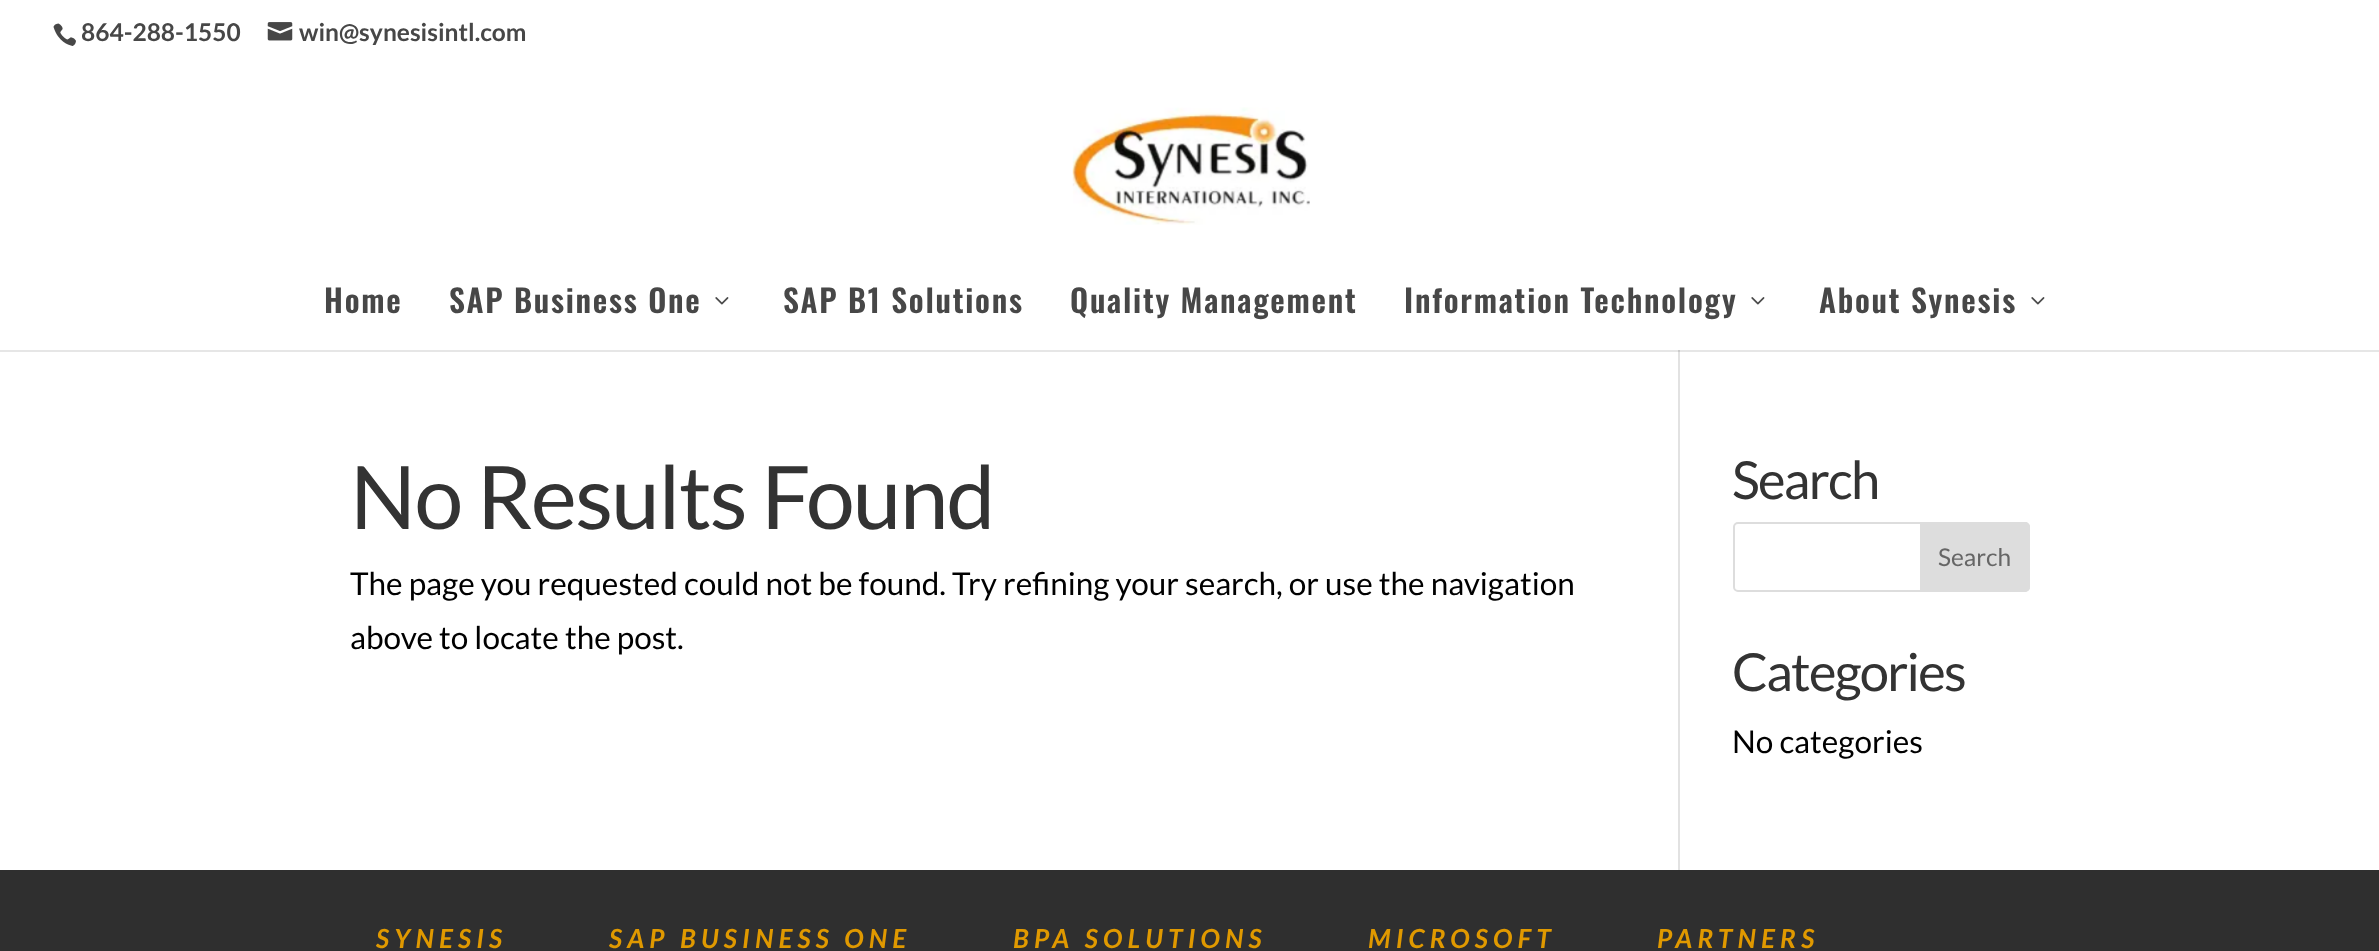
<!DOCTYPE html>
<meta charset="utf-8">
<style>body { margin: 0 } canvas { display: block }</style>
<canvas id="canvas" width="2379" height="951"></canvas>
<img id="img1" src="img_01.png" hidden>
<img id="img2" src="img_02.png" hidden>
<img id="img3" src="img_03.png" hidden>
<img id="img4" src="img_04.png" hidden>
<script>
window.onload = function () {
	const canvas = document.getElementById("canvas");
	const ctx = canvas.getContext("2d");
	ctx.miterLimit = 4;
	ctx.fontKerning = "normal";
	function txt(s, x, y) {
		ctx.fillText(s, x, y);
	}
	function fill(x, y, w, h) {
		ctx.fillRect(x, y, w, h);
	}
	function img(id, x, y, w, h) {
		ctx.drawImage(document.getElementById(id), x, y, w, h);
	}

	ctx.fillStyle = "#FFFFFF";
	fill(0, 0, 2379, 951);
	ctx.fillStyle = "#E6E6E6";
	fill(0, 350, 2379, 2);
	img("img1", 53, 23, 23, 23);
	img("img2", 267, 22, 26, 19);
	img("img3", 1072, 107, 238, 118);
	img("img4", 715, 297, 14, 8);
	img("img4", 1751, 297, 14, 8);
	img("img4", 2031, 297, 14, 8);
	ctx.fillStyle = "#E2E2E2";
	fill(1678, 350, 2, 520);
	ctx.fillStyle = "#CBCBCB";
	fill(1678, 350, 2, 2);
	ctx.beginPath();
	ctx.roundRect(1734, 523, 295, 68, 4);
	ctx.strokeStyle = "#DDDDDD";
	ctx.lineWidth = 2;
	ctx.stroke();
	ctx.fillStyle = "#DDDDDD";
	ctx.beginPath();
	ctx.roundRect(1921, 523, 108, 68, [0, 4, 4, 0]);
	ctx.fill();
	ctx.stroke();
	ctx.fillStyle = "#2F2F2F";
	fill(0, 870, 2379, 81);
	ctx.font = "bold 24.5px Lato";
	ctx.fillStyle = "#474747";
	txt("864-288-1550", 81, 41);
	txt("win@synesisintl.com", 299, 41);
	ctx.letterSpacing = "1.75px";
	ctx.font = "600 31.5px Oswald";
	txt("Home", 324, 313);
	txt("SAP Business One", 449, 313);
	txt("SAP B1 Solutions", 783, 313);
	txt("Quality Management", 1070, 313);
	txt("Information Technology", 1404, 313);
	txt("About Synesis", 1819, 313);
	ctx.letterSpacing = "-1.75px";
	ctx.font = "87.5px Lato";
	ctx.fillStyle = "#333333";
	txt("No Results Found", 350, 529);
	ctx.letterSpacing = "0px";
	ctx.font = "31.5px Lato";
	ctx.fillStyle = "#000000";
	txt("The page you requested could not be found. Try refining your search, or use the navigation", 350, 595);
	txt("above to locate the post.", 350, 649);
	ctx.letterSpacing = "-1.75px";
	ctx.font = "52.5px Lato";
	ctx.fillStyle = "#333333";
	txt("Search", 1732, 499);
	ctx.letterSpacing = "0px";
	ctx.font = "24.5px Lato";
	ctx.fillStyle = "#666666";
	txt("Search", 1938, 566);
	ctx.letterSpacing = "-1.75px";
	ctx.font = "52.5px Lato";
	ctx.fillStyle = "#333333";
	txt("Categories", 1732, 691);
	ctx.letterSpacing = "0px";
	ctx.font = "31.5px Lato";
	ctx.fillStyle = "#000000";
	txt("No categories", 1732, 753);
	ctx.letterSpacing = "5.25px";
	ctx.font = "italic bold 26.25px Lato";
	ctx.fillStyle = "#E09900";
	txt("SYNESIS", 376, 948);
	txt("SAP BUSINESS ONE", 609, 948);
	txt("BPA SOLUTIONS", 1013, 948);
	txt("MICROSOFT", 1368, 948);
	txt("PARTNERS", 1657, 948);
};
</script>
